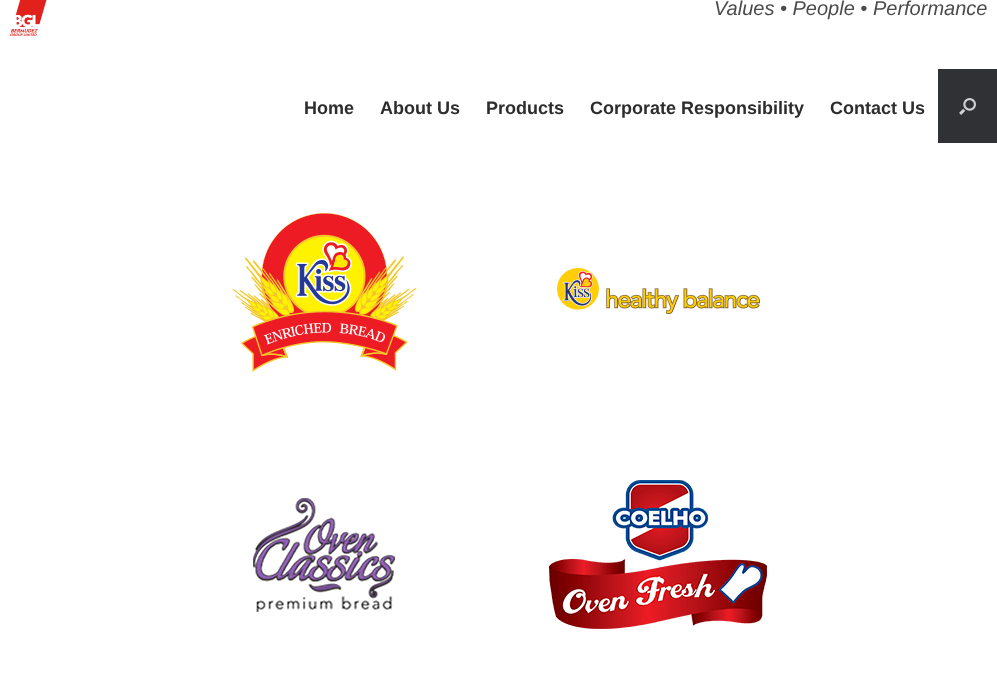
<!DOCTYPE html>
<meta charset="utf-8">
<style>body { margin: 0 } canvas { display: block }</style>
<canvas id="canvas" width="997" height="687"></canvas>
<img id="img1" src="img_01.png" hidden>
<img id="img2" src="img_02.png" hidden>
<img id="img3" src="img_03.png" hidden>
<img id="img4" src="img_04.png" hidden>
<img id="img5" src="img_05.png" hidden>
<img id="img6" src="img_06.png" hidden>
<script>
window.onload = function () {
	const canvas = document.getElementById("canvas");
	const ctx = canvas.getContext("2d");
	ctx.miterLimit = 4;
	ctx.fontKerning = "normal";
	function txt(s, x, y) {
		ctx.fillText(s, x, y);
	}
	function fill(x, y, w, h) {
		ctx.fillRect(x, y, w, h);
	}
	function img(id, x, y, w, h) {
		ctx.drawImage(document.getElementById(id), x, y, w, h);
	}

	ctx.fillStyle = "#FFFFFF";
	fill(0, 0, 997, 687);
	img("img1", 10, 0, 37, 36);
	ctx.fillStyle = "#303134";
	fill(938, 69, 59, 74);
	img("img2", 959, 98, 17, 17);
	img("img3", 232, 213, 185, 159);
	img("img4", 557, 268, 203, 46);
	img("img5", 253, 498, 142, 114);
	img("img6", 549, 480, 218, 149);
	ctx.font = "italic 20px Liberation Sans";
	ctx.fillStyle = "#4B4B4B";
	txt("Values • People • Performance", 714, 15);
	ctx.font = "bold 18px Liberation Sans";
	ctx.fillStyle = "#2D2D2D";
	txt("Home", 304, 114);
	txt("About Us", 380, 114);
	txt("Products", 486, 114);
	txt("Corporate Responsibility", 590, 114);
	txt("Contact Us", 830, 114);
};
</script>
